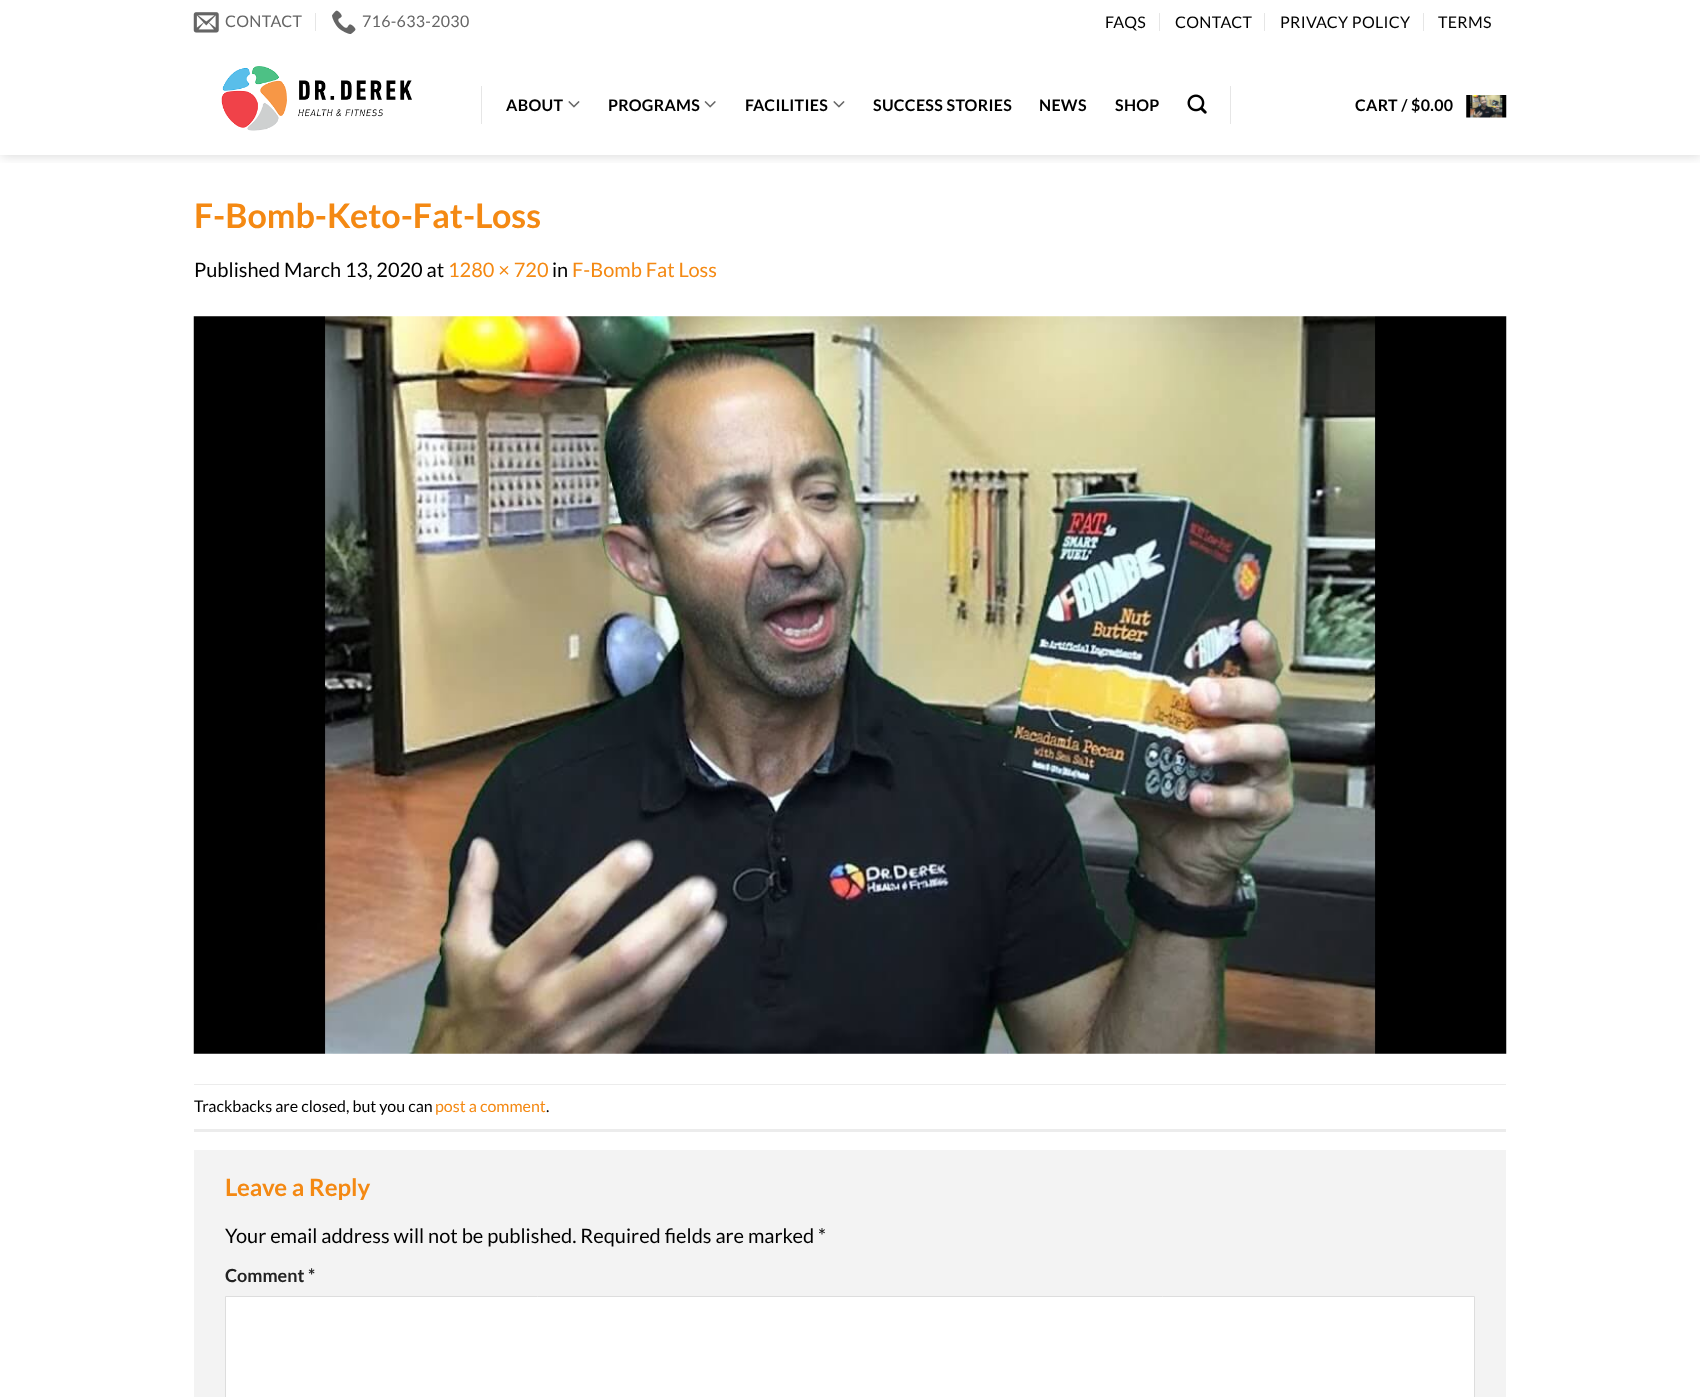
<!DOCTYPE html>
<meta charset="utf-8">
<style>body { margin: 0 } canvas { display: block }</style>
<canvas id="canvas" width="1700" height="1397"></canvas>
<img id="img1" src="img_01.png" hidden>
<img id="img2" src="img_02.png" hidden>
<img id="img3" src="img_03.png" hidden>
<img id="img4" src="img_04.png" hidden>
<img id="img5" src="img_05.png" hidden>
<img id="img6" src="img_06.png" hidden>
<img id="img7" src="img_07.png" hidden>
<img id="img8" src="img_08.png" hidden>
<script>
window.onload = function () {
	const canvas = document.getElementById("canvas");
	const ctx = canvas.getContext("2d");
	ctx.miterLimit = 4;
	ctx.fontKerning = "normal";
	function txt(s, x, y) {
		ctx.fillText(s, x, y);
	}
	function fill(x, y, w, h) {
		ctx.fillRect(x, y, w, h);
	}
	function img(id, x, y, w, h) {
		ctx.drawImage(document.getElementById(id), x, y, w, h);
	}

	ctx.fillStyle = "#FFFFFF";
	fill(0, 0, 1700, 1397);
	ctx.save();
	ctx.beginPath();
	ctx.rect(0, 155, 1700, 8);
	ctx.clip();
	ctx.fillStyle = "rgba(0, 0, 0, 0.15)";
	ctx.filter = "blur(6px)";
	ctx.beginPath();
	ctx.rect(1, 1, 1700, 155);
	ctx.fill();
	ctx.filter = "none";
	ctx.restore();
	img("img1", 193, 12, 26, 21);
	ctx.fillStyle = "#E6E6E6";
	fill(315, 13, 1, 18);
	img("img2", 332, 10, 24, 24);
	fill(1159, 13, 1, 18);
	fill(1264, 13, 1, 18);
	fill(1423, 13, 1, 18);
	img("img3", 221, 66, 191, 65);
	fill(481, 86, 1, 38);
	img("img4", 568, 101, 12, 7);
	img("img5", 704, 101, 12, 7);
	img("img4", 833, 101, 12, 7);
	img("img6", 1187, 94, 20, 20);
	fill(1230, 86, 1, 38);
	img("img7", 1466, 95, 41, 23);
	img("img8", 193, 316, 1314, 738);
	ctx.fillStyle = "#ECECEC";
	fill(194, 1084, 1312, 1);
	fill(194, 1129, 1312, 3);
	ctx.fillStyle = "#F3F3F3";
	fill(194, 1150, 1312, 247);
	ctx.fillStyle = "#FFFFFF";
	ctx.beginPath();
	ctx.rect(225.5, 1296.5, 1249, 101);
	ctx.fill();
	ctx.strokeStyle = "#DDDDDD";
	ctx.stroke();
	ctx.letterSpacing = "0.3px";
	ctx.font = "16px Lato";
	ctx.fillStyle = "#656565";
	txt("CONTACT", 225, 27);
	txt("716-633-2030", 362, 27);
	ctx.fillStyle = "#000000";
	txt("FAQS", 1105, 28);
	txt("CONTACT", 1175, 28);
	txt("PRIVACY POLICY", 1280, 28);
	txt("TERMS", 1438, 28);
	ctx.font = "bold 16px Lato";
	txt("ABOUT", 506, 111);
	txt("PROGRAMS", 608, 111);
	txt("FACILITIES", 745, 111);
	txt("SUCCESS STORIES", 873, 111);
	txt("NEWS", 1039, 111);
	txt("SHOP", 1115, 111);
	txt("CART / $0.00", 1355, 111);
	ctx.letterSpacing = "0px";
	ctx.font = "bold 34px Lato";
	ctx.fillStyle = "#F48913";
	txt("F-Bomb-Keto-Fat-Loss", 194, 228);
	ctx.font = "20px Lato";
	ctx.fillStyle = "#000000";
	txt("Published March 13, 2020 at", 194, 277);
	ctx.fillStyle = "#F48913";
	txt("1280 × 720", 448, 277);
	ctx.fillStyle = "#000000";
	txt("in", 552, 277);
	ctx.fillStyle = "#F48913";
	txt("F-Bomb Fat Loss", 572, 277);
	ctx.font = "16px Lato";
	ctx.fillStyle = "#000000";
	txt("Trackbacks are closed, but you can", 194, 1112);
	ctx.fillStyle = "#F48913";
	txt("post a comment", 435, 1112);
	ctx.fillStyle = "#000000";
	txt(".", 546, 1112);
	ctx.font = "bold 24px Lato";
	ctx.fillStyle = "#F48913";
	txt("Leave a Reply", 225, 1196);
	ctx.font = "20px Lato";
	ctx.fillStyle = "#000000";
	txt("Your email address will not be published. Required fields are marked *", 225, 1243);
	ctx.font = "bold 18px Lato";
	ctx.fillStyle = "#222222";
	txt("Comment *", 225, 1282);
};
</script>
